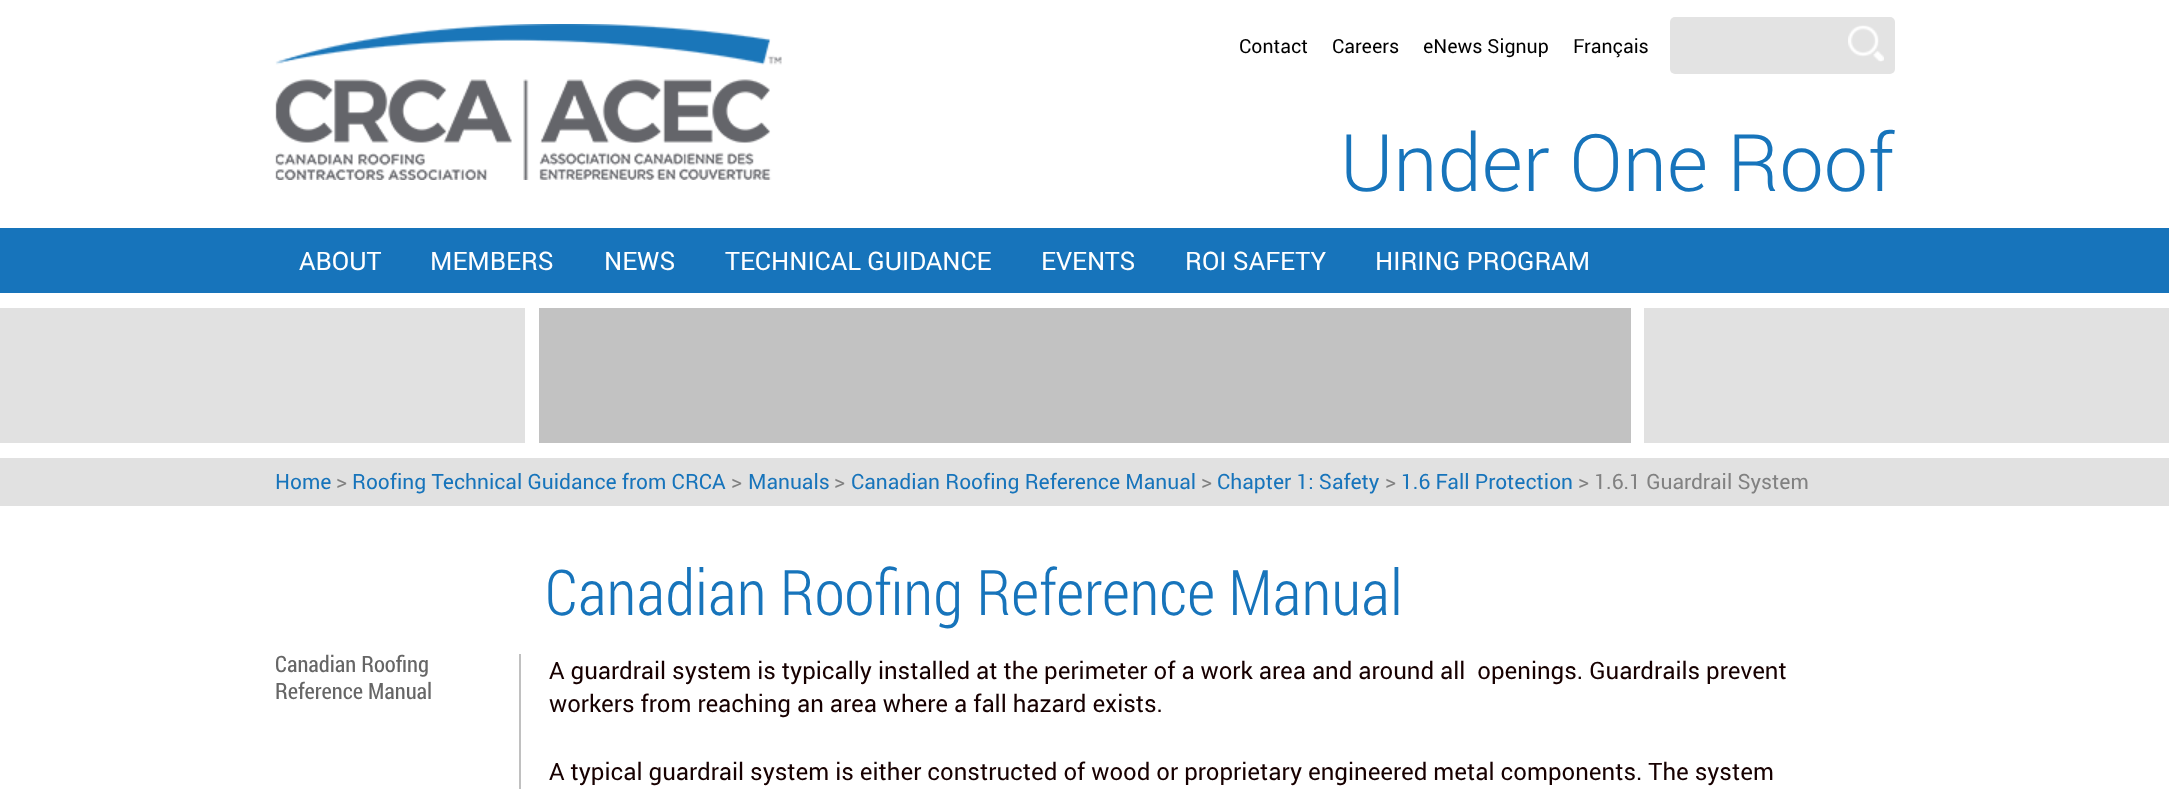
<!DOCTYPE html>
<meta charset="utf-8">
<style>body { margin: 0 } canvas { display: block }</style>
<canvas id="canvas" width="2169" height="789"></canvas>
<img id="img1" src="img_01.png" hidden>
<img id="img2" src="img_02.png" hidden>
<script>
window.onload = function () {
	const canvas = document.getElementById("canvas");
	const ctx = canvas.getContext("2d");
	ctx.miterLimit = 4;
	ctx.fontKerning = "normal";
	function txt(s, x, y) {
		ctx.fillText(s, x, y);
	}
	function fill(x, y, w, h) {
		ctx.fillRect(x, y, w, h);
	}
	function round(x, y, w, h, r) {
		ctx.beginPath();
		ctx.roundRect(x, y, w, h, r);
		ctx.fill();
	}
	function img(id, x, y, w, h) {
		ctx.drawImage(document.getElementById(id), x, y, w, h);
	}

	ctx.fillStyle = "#FFFFFF";
	fill(0, 0, 2169, 789);
	img("img1", 275, 24, 507, 156);
	ctx.fillStyle = "#E3E3E3";
	round(1670, 17, 225, 57, 5);
	img("img2", 1848, 25, 36, 37);
	ctx.fillStyle = "#1774BB";
	fill(0, 228, 2169, 65);
	ctx.fillStyle = "#E1E1E1";
	fill(0, 308, 2169, 135);
	ctx.fillStyle = "#C2C2C2";
	fill(539, 308, 1092, 135);
	ctx.fillStyle = "#FFFFFF";
	fill(1631, 308, 13, 135);
	fill(525, 308, 14, 135);
	ctx.fillStyle = "#E1E1E1";
	fill(0, 458, 2169, 48);
	ctx.fillStyle = "#C0C0C0";
	fill(519, 654, 2, 135);
	ctx.font = "19.5px Roboto";
	ctx.fillStyle = "#000000";
	txt("Contact", 1239, 53);
	txt("Careers", 1332, 53);
	txt("eNews Signup", 1423, 53);
	txt("Français", 1573, 53);
	ctx.font = "300 79.5px Roboto";
	ctx.fillStyle = "#1774BB";
	txt("Under One Roof", 1340, 191);
	ctx.font = "25.5px Roboto";
	ctx.fillStyle = "#FFFFFF";
	txt("ABOUT", 299, 270);
	txt("MEMBERS", 430, 270);
	txt("NEWS", 604, 270);
	txt("TECHNICAL GUIDANCE", 725, 270);
	txt("EVENTS", 1041, 270);
	txt("ROI SAFETY", 1185, 270);
	txt("HIRING PROGRAM", 1375, 270);
	ctx.font = "21px Roboto";
	ctx.fillStyle = "#1774BB";
	txt("Home", 275, 489);
	ctx.fillStyle = "#818181";
	txt(">", 336, 489);
	ctx.fillStyle = "#1774BB";
	txt("Roofing Technical Guidance from CRCA", 352, 489);
	ctx.fillStyle = "#818181";
	txt(">", 731, 489);
	ctx.fillStyle = "#1774BB";
	txt("Manuals", 748, 489);
	ctx.fillStyle = "#818181";
	txt(">", 834, 489);
	ctx.fillStyle = "#1774BB";
	txt("Canadian Roofing Reference Manual", 851, 489);
	ctx.fillStyle = "#818181";
	txt(">", 1201, 489);
	ctx.fillStyle = "#1774BB";
	txt("Chapter 1: Safety", 1217, 489);
	ctx.fillStyle = "#818181";
	txt(">", 1385, 489);
	ctx.fillStyle = "#1774BB";
	txt("1.6 Fall Protection", 1401, 489);
	ctx.fillStyle = "#818181";
	txt("> 1.6.1 Guardrail System", 1578, 489);
	ctx.font = "22.5px Roboto Condensed";
	ctx.fillStyle = "#666666";
	txt("Canadian Roofing", 275, 672);
	txt("Reference Manual", 275, 699);
	ctx.font = "300 63px Roboto Condensed";
	ctx.fillStyle = "#1774BB";
	txt("Canadian Roofing Reference Manual", 545, 615);
	ctx.font = "24px Roboto";
	ctx.fillStyle = "#170000";
	txt("A guardrail system is typically installed at the perimeter of a work area and around all  openings. Guardrails prevent", 549, 679);
	txt("workers from reaching an area where a fall hazard exists.", 549, 712);
	txt("A typical guardrail system is either constructed of wood or proprietary engineered metal components. The system", 549, 780);
};
</script>
